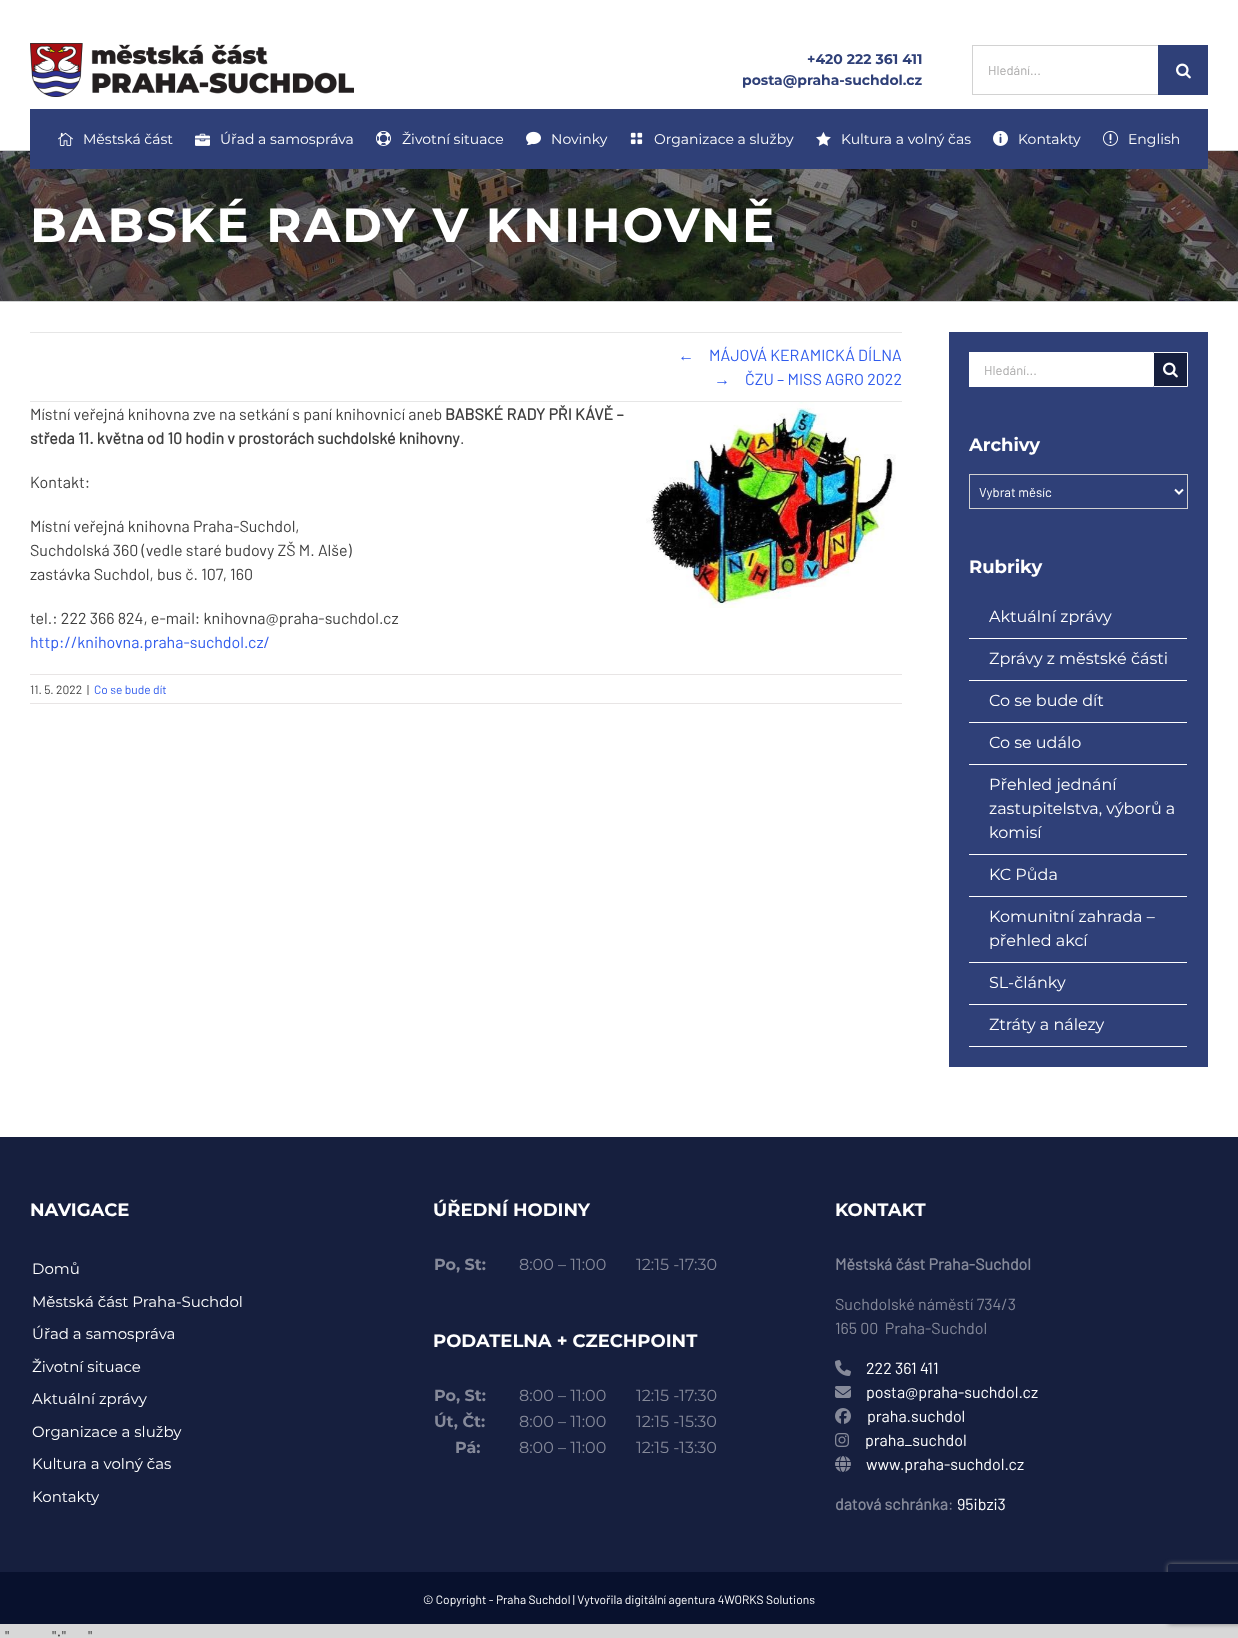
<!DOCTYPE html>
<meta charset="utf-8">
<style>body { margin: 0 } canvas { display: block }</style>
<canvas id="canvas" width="1238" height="1638"></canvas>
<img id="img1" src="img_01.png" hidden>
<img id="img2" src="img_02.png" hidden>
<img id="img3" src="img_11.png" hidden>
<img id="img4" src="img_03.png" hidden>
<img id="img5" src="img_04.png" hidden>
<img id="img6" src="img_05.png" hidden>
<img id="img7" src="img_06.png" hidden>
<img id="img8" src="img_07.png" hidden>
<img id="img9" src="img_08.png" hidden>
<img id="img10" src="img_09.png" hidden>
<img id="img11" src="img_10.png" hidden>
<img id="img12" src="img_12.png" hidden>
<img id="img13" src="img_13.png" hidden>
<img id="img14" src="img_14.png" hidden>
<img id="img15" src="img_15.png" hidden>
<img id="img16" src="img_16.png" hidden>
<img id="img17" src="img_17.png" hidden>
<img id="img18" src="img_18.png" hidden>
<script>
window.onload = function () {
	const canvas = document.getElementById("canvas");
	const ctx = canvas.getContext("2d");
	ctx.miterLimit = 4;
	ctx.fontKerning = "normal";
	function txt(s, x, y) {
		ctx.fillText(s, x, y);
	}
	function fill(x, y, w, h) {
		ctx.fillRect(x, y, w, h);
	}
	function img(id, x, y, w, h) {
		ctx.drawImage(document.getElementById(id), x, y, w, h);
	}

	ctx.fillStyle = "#D8D8D8";
	fill(0, 0, 1238, 1638);
	ctx.fillStyle = "#FFFFFF";
	fill(0, 0, 1238, 1137);
	img("img1", 30, 43, 324, 54);
	ctx.fillStyle = "#D2D2D2";
	fill(972, 45, 186, 1);
	fill(972, 94, 186, 1);
	fill(972, 45, 1, 50);
	ctx.fillStyle = "#2F4078";
	fill(1158, 45, 50, 50);
	img("img2", 1176, 63, 15, 16);
	img("img3", 0, 151, 1238, 150);
	ctx.fillStyle = "#D2D3D4";
	fill(0, 150, 1238, 1);
	ctx.fillStyle = "#2F4078";
	fill(30, 109, 1178, 60);
	img("img4", 58, 132, 15, 14);
	img("img5", 195, 133, 15, 13);
	img("img6", 376, 130, 15, 16);
	img("img7", 526, 131, 15, 14);
	img("img8", 630, 132, 13, 13);
	img("img9", 816, 132, 15, 14);
	img("img10", 993, 130, 15, 16);
	img("img11", 1103, 130, 15, 16);
	ctx.fillStyle = "#D2D3D4";
	fill(0, 301, 1238, 1);
	ctx.fillStyle = "#E6E6E6";
	fill(30, 332, 872, 1);
	fill(30, 401, 872, 1);
	img("img12", 646, 402, 250, 206);
	ctx.fillStyle = "#E8E5E5";
	fill(30, 674, 872, 1);
	fill(30, 703, 872, 1);
	ctx.fillStyle = "#2F4078";
	fill(949, 332, 259, 735);
	ctx.fillStyle = "#FFFFFF";
	fill(969, 352, 184, 35);
	ctx.fillStyle = "#161F3E";
	ctx.beginPath();
	ctx.rect(1153.5, 352.5, 34, 34);
	ctx.fill();
	ctx.strokeStyle = "#FFFFFF";
	ctx.stroke();
	img("img13", 1163, 362, 15, 16);
	ctx.strokeStyle = "#D2D2D2";
	ctx.strokeRect(969.5, 474.5, 218, 34);
	ctx.beginPath();
	ctx.moveTo(1175, 489.5);
	ctx.lineTo(1179, 493.5);
	ctx.lineTo(1183, 489.5);
	ctx.strokeStyle = "#FFFFFF";
	ctx.lineWidth = 2;
	ctx.stroke();
	ctx.fillStyle = "#FFFFFF";
	fill(969, 638, 218, 1);
	fill(969, 680, 218, 1);
	fill(969, 722, 218, 1);
	fill(969, 764, 218, 1);
	fill(969, 854, 218, 1);
	fill(969, 896, 218, 1);
	fill(969, 962, 218, 1);
	fill(969, 1004, 218, 1);
	fill(969, 1046, 218, 1);
	ctx.fillStyle = "#161F3E";
	fill(0, 1137, 1238, 435);
	img("img14", 835, 1360, 16, 16);
	img("img15", 835, 1386, 16, 12);
	img("img16", 835, 1408, 16, 16);
	img("img17", 835, 1433, 14, 14);
	img("img18", 835, 1456, 16, 16);
	ctx.save();
	ctx.beginPath();
	ctx.moveTo(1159, 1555);
	ctx.lineTo(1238, 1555);
	ctx.lineTo(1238, 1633);
	ctx.lineTo(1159, 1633);
	ctx.closePath();
	ctx.moveTo(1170, 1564);
	ctx.lineTo(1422, 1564);
	ctx.bezierCurveTo(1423, 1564, 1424, 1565, 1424, 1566);
	ctx.lineTo(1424, 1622);
	ctx.bezierCurveTo(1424, 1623, 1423, 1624, 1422, 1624);
	ctx.lineTo(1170, 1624);
	ctx.bezierCurveTo(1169, 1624, 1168, 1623, 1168, 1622);
	ctx.lineTo(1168, 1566);
	ctx.bezierCurveTo(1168, 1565, 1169, 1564, 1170, 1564);
	ctx.closePath();
	ctx.clip("evenodd");
	ctx.fillStyle = "#808080";
	ctx.filter = "blur(2.5px)";
	ctx.beginPath();
	ctx.roundRect(1168, 1564, 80, 60, 2);
	ctx.fill();
	ctx.filter = "none";
	ctx.restore();
	ctx.fillStyle = "#08112D";
	fill(0, 1572, 1238, 52);
	ctx.font = "bold 14px Montserrat";
	ctx.fillStyle = "#2F4078";
	txt("+420 222 361 411", 807, 64);
	txt("posta@praha-suchdol.cz", 742, 85);
	ctx.font = "13px Barlow";
	ctx.fillStyle = "#AAA9A9";
	txt("Hledání...", 988, 75);
	ctx.font = "100 14px Montserrat";
	ctx.fillStyle = "#FFFFFF";
	txt("Městská část", 83, 144);
	txt("Úřad a samospráva", 220, 144);
	txt("Životní situace", 402, 144);
	txt("Novinky", 551, 144);
	txt("Organizace a služby", 654, 144);
	txt("Kultura a volný čas", 841, 144);
	txt("Kontakty", 1018, 144);
	txt("English", 1128, 144);
	ctx.letterSpacing = "2px";
	ctx.font = "bold 48px Montserrat";
	txt("BABSKÉ RADY V KNIHOVNĚ", 30, 242);
	ctx.letterSpacing = "0px";
	ctx.font = "16px Liberation Serif";
	ctx.fillStyle = "#2F5BED";
	txt("←", 678, 361);
	ctx.font = "16px Barlow";
	txt("MÁJOVÁ KERAMICKÁ DÍLNA", 709, 361);
	ctx.font = "16px Liberation Serif";
	txt("→", 714, 385);
	ctx.font = "16px Barlow";
	txt("ČZU – MISS AGRO 2022", 745, 385);
	ctx.fillStyle = "#3F3F3F";
	txt("Místní veřejná knihovna zve na setkání s paní knihovnicí aneb", 30, 420);
	ctx.font = "bold 16px Barlow";
	txt("BABSKÉ RADY PŘI KÁVĚ –", 445, 420);
	txt("středa 11. května od 10 hodin v prostorách suchdolské knihovny", 30, 444);
	ctx.font = "16px Barlow";
	txt(".", 460, 444);
	txt("Kontakt:", 30, 488);
	txt("Místní veřejná knihovna Praha-Suchdol,", 30, 532);
	txt("Suchdolská 360 (vedle staré budovy ZŠ M. Alše)", 30, 556);
	txt("zastávka Suchdol, bus č. 107, 160", 30, 580);
	txt("tel.: 222 366 824, e-mail: knihovna@praha-suchdol.cz", 30, 624);
	ctx.fillStyle = "#2F5BED";
	txt("http://knihovna.praha-suchdol.cz/", 30, 648);
	ctx.font = "12px Barlow";
	ctx.fillStyle = "#3F3F3F";
	txt("11. 5. 2022", 30, 694);
	txt("|", 87, 694);
	ctx.fillStyle = "#2F5BED";
	txt("Co se bude dít", 94, 694);
	ctx.font = "13px Barlow";
	ctx.fillStyle = "#AAA9A9";
	txt("Hledání...", 984, 375);
	ctx.font = "bold 18px Montserrat";
	ctx.fillStyle = "#FFFFFF";
	txt("Archivy", 969, 451);
	ctx.font = "13px Barlow";
	txt("Vybrat měsíc", 979, 497);
	ctx.font = "bold 18px Montserrat";
	txt("Rubriky", 969, 573);
	ctx.font = "100 16px Montserrat";
	txt("Aktuální zprávy", 989, 622);
	txt("Zprávy z městské části", 989, 664);
	txt("Co se bude dít", 989, 706);
	txt("Co se událo", 989, 748);
	txt("Přehled jednání", 989, 790);
	txt("zastupitelstva, výborů a", 989, 814);
	txt("komisí", 989, 838);
	txt("KC Půda", 989, 880);
	txt("Komunitní zahrada –", 989, 922);
	txt("přehled akcí", 989, 946);
	txt("SL-články", 989, 988);
	txt("Ztráty a nálezy", 989, 1030);
	ctx.font = "bold 18px Montserrat";
	txt("NAVIGACE", 30, 1216);
	ctx.font = "100 15px Montserrat";
	txt("Domů", 32, 1274);
	txt("Městská část Praha-Suchdol", 32, 1307);
	txt("Úřad a samospráva", 32, 1339);
	txt("Životní situace", 32, 1372);
	txt("Aktuální zprávy", 32, 1404);
	txt("Organizace a služby", 32, 1437);
	txt("Kultura a volný čas", 32, 1469);
	txt("Kontakty", 32, 1502);
	ctx.font = "bold 18px Montserrat";
	txt("ÚŘEDNÍ HODINY", 433, 1216);
	ctx.font = "bold 16px Montserrat";
	ctx.fillStyle = "#868A9A";
	txt("Po, St:", 434, 1270);
	ctx.font = "100 16px Montserrat";
	txt("8:00 – 11:00", 519, 1270);
	txt("12:15 -17:30", 636, 1270);
	ctx.font = "bold 18px Montserrat";
	ctx.fillStyle = "#FFFFFF";
	txt("PODATELNA + CZECHPOINT", 433, 1347);
	ctx.font = "bold 16px Montserrat";
	ctx.fillStyle = "#868A9A";
	txt("Po, St:", 434, 1401);
	ctx.font = "100 16px Montserrat";
	txt("8:00 – 11:00", 519, 1401);
	txt("12:15 -17:30", 636, 1401);
	ctx.font = "bold 16px Montserrat";
	txt("Út, Čt:", 434, 1427);
	ctx.font = "100 16px Montserrat";
	txt("8:00 – 11:00", 519, 1427);
	txt("12:15 -15:30", 636, 1427);
	ctx.font = "bold 16px Montserrat";
	txt("Pá:", 455, 1453);
	ctx.font = "100 16px Montserrat";
	txt("8:00 – 11:00", 519, 1453);
	txt("12:15 -13:30", 636, 1453);
	ctx.font = "bold 18px Montserrat";
	ctx.fillStyle = "#FFFFFF";
	txt("KONTAKT", 835, 1216);
	ctx.font = "bold 16px Barlow";
	ctx.fillStyle = "#868A9A";
	txt("Městská část Praha-Suchdol", 835, 1270);
	ctx.font = "16px Barlow";
	txt("Suchdolské náměstí 734/3", 835, 1310);
	txt("165 00  Praha-Suchdol", 835, 1334);
	ctx.fillStyle = "#FFFFFF";
	txt("222 361 411", 866, 1374);
	txt("posta@praha-suchdol.cz", 866, 1398);
	txt("praha.suchdol", 867, 1422);
	txt("praha_suchdol", 865, 1446);
	txt("www.praha-suchdol.cz", 866, 1470);
	ctx.font = "bold 16px Barlow";
	ctx.fillStyle = "#868A9A";
	txt("datová schránka", 835, 1510);
	ctx.font = "16px Barlow";
	txt(":", 948, 1510);
	ctx.fillStyle = "#FFFFFF";
	txt("95ibzi3", 957, 1510);
	ctx.font = "12px Barlow";
	txt("© Copyright - Praha Suchdol | Vytvořila digitální agentura 4WORKS Solutions", 423, 1604);
	ctx.font = "16px Barlow";
	ctx.fillStyle = "#3F3F3F";
	txt("\"", 5, 1642);
	txt("\":\"", 52, 1642);
	txt("\"", 88, 1642);
};
</script>
